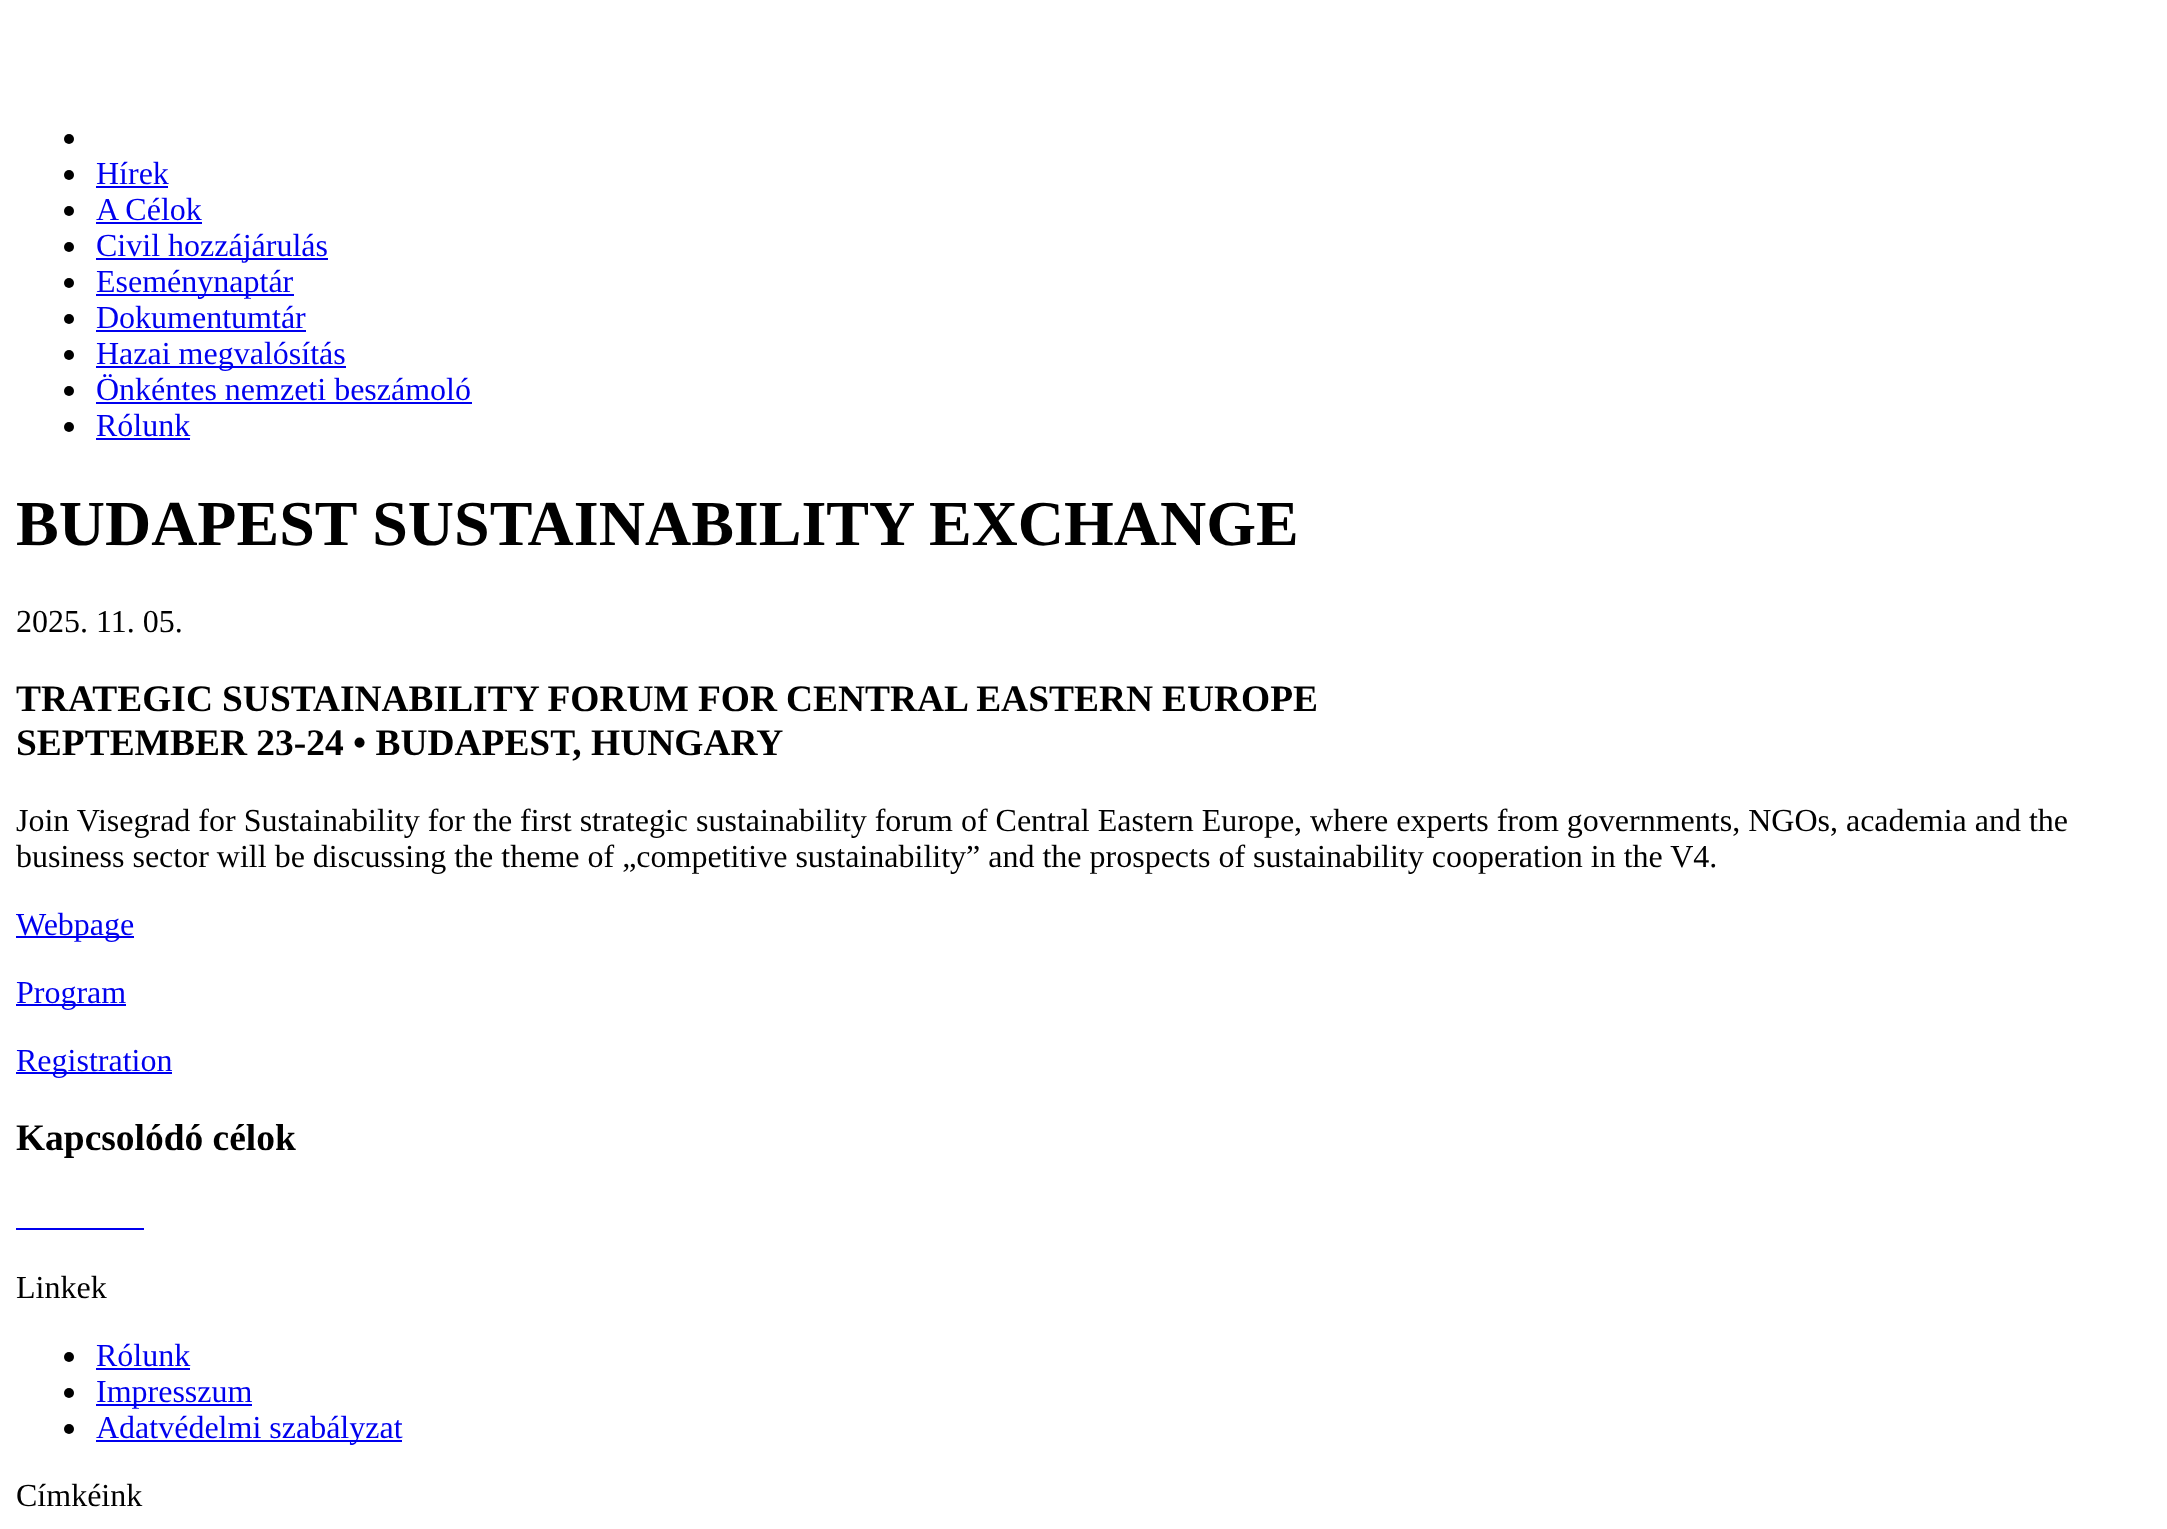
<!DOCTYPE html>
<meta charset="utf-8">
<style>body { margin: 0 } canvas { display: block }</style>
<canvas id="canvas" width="2167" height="1529"></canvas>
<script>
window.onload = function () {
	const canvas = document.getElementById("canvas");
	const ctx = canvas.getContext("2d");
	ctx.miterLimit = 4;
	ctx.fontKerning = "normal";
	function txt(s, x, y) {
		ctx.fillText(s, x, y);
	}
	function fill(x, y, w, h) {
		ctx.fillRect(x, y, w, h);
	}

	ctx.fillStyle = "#FFFFFF";
	fill(0, 0, 2167, 1529);
	ctx.fillStyle = "#000000";
	ctx.beginPath();
	ctx.arc(69, 139, 5, 0, Math.PI * 2);
	ctx.fill();
	ctx.beginPath();
	ctx.arc(69, 175, 5, 0, Math.PI * 2);
	ctx.fill();
	ctx.fillStyle = "#0000EE";
	fill(96, 186, 72, 2);
	ctx.fillStyle = "#000000";
	ctx.beginPath();
	ctx.arc(69, 211, 5, 0, Math.PI * 2);
	ctx.fill();
	ctx.fillStyle = "#0000EE";
	fill(96, 222, 106, 2);
	ctx.fillStyle = "#000000";
	ctx.beginPath();
	ctx.arc(69, 247, 5, 0, Math.PI * 2);
	ctx.fill();
	ctx.fillStyle = "#0000EE";
	fill(96, 258, 232, 2);
	ctx.fillStyle = "#000000";
	ctx.beginPath();
	ctx.arc(69, 283, 5, 0, Math.PI * 2);
	ctx.fill();
	ctx.fillStyle = "#0000EE";
	fill(96, 294, 198, 2);
	ctx.fillStyle = "#000000";
	ctx.beginPath();
	ctx.arc(69, 319, 5, 0, Math.PI * 2);
	ctx.fill();
	ctx.fillStyle = "#0000EE";
	fill(96, 330, 210, 2);
	ctx.fillStyle = "#000000";
	ctx.beginPath();
	ctx.arc(69, 355, 5, 0, Math.PI * 2);
	ctx.fill();
	ctx.fillStyle = "#0000EE";
	fill(96, 366, 250, 2);
	ctx.fillStyle = "#000000";
	ctx.beginPath();
	ctx.arc(69, 391, 5, 0, Math.PI * 2);
	ctx.fill();
	ctx.fillStyle = "#0000EE";
	fill(96, 402, 376, 2);
	ctx.fillStyle = "#000000";
	ctx.beginPath();
	ctx.arc(69, 427, 5, 0, Math.PI * 2);
	ctx.fill();
	ctx.fillStyle = "#0000EE";
	fill(96, 438, 94, 2);
	fill(16, 936, 118, 2);
	fill(16, 1004, 110, 2);
	fill(16, 1072, 156, 2);
	fill(16, 1228, 128, 2);
	ctx.fillStyle = "#000000";
	ctx.beginPath();
	ctx.arc(69, 1357, 5, 0, Math.PI * 2);
	ctx.fill();
	ctx.fillStyle = "#0000EE";
	fill(96, 1368, 94, 2);
	ctx.fillStyle = "#000000";
	ctx.beginPath();
	ctx.arc(69, 1393, 5, 0, Math.PI * 2);
	ctx.fill();
	ctx.fillStyle = "#0000EE";
	fill(96, 1404, 156, 2);
	ctx.fillStyle = "#000000";
	ctx.beginPath();
	ctx.arc(69, 1429, 5, 0, Math.PI * 2);
	ctx.fill();
	ctx.fillStyle = "#0000EE";
	fill(96, 1440, 306, 2);
	ctx.font = "32px Liberation Serif";
	txt("Hírek", 96, 184);
	txt("A Célok", 96, 220);
	txt("Civil hozzájárulás", 96, 256);
	txt("Eseménynaptár", 96, 292);
	txt("Dokumentumtár", 96, 328);
	txt("Hazai megvalósítás", 96, 364);
	txt("Önkéntes nemzeti beszámoló", 96, 400);
	txt("Rólunk", 96, 436);
	ctx.font = "bold 64px Liberation Serif";
	ctx.fillStyle = "#000000";
	txt("BUDAPEST SUSTAINABILITY EXCHANGE", 16, 545);
	ctx.font = "32px Liberation Serif";
	txt("2025. 11. 05.", 16, 632);
	ctx.wordSpacing = "-0.25px";
	ctx.font = "bold 37.45px Liberation Serif";
	txt("TRATEGIC SUSTAINABILITY FORUM FOR CENTRAL EASTERN EUROPE", 16, 711);
	ctx.wordSpacing = "0px";
	txt("SEPTEMBER 23-24 • BUDAPEST, HUNGARY", 16, 755);
	ctx.font = "32px Liberation Serif";
	txt("Join Visegrad for Sustainability for the first strategic sustainability forum of Central Eastern Europe, where experts from governments, NGOs, academia and the", 16, 831);
	txt("business sector will be discussing the theme of „competitive sustainability” and the prospects of sustainability cooperation in the V4.", 16, 867);
	ctx.fillStyle = "#0000EE";
	txt("Webpage", 16, 935);
	txt("Program", 16, 1003);
	txt("Registration", 16, 1071);
	ctx.font = "bold 37.45px Liberation Serif";
	ctx.fillStyle = "#000000";
	txt("Kapcsolódó célok", 16, 1150);
	ctx.font = "32px Liberation Serif";
	txt("Linkek", 16, 1298);
	ctx.fillStyle = "#0000EE";
	txt("Rólunk", 96, 1366);
	txt("Impresszum", 96, 1402);
	txt("Adatvédelmi szabályzat", 96, 1438);
	ctx.fillStyle = "#000000";
	txt("Címkéink", 16, 1506);
};
</script>
